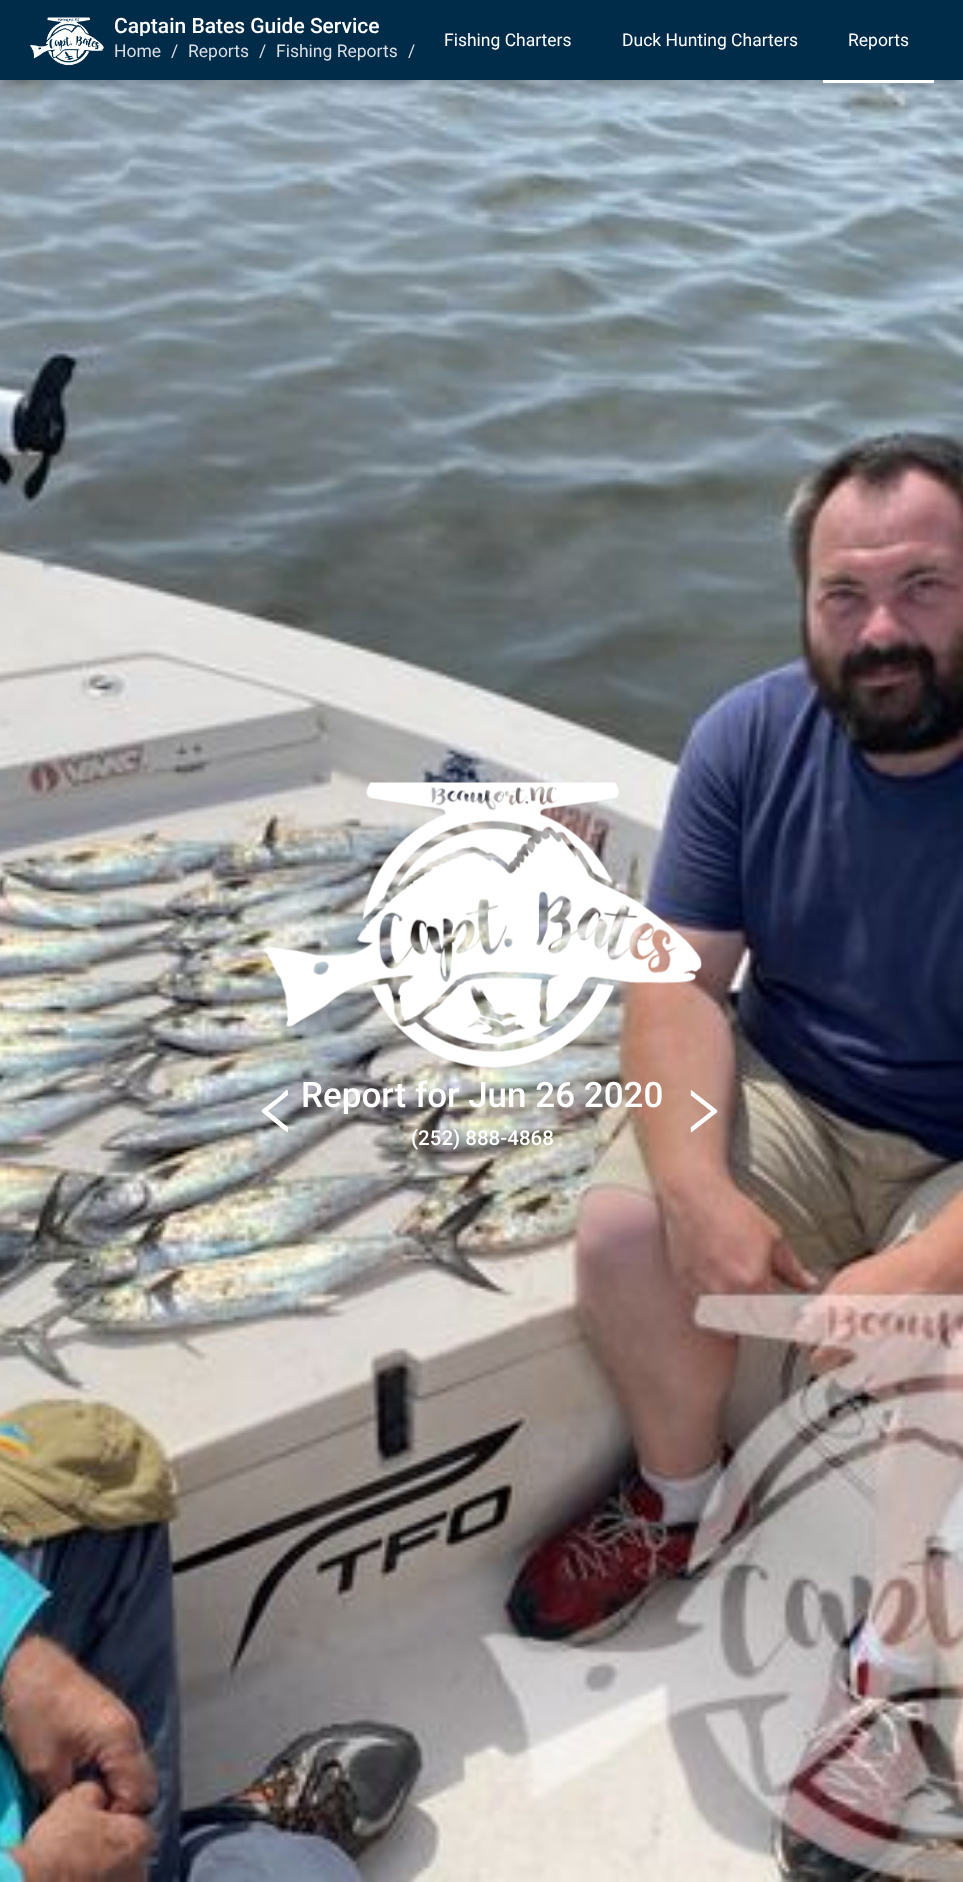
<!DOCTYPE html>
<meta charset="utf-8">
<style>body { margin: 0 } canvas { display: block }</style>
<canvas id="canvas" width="963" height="1882"></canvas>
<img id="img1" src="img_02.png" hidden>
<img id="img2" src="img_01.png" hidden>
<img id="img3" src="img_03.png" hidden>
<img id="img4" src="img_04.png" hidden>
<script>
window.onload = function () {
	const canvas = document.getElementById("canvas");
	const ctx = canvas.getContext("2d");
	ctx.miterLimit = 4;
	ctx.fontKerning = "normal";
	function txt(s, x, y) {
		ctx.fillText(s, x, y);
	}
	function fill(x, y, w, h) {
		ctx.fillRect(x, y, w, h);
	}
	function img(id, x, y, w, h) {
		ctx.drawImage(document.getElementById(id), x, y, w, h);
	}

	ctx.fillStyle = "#002B49";
	fill(0, 0, 963, 1882);
	img("img1", 0, 80, 963, 1802);
	ctx.save();
	ctx.beginPath();
	ctx.rect(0, 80, 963, 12);
	ctx.clip();
	ctx.fillStyle = "rgba(0, 0, 0, 0.15)";
	ctx.filter = "blur(5px)";
	ctx.beginPath();
	ctx.rect(0, 6, 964, 80);
	ctx.fill();
	ctx.filter = "none";
	ctx.restore();
	img("img2", 30, 17, 74, 49);
	ctx.fillStyle = "#FFFFFF";
	fill(823, 80, 111, 3);
	img("img3", 263, 782, 439, 286);
	ctx.beginPath();
	ctx.moveTo(288, 1095);
	ctx.bezierCurveTo(288, 1086, 287, 1090, 279, 1097);
	ctx.lineTo(266, 1107);
	ctx.bezierCurveTo(266, 1107, 260, 1110, 262, 1112);
	ctx.lineTo(279, 1126);
	ctx.bezierCurveTo(285, 1131, 288, 1133, 288, 1132);
	ctx.lineTo(288, 1129);
	ctx.bezierCurveTo(288, 1126, 288, 1127, 284, 1124);
	ctx.lineTo(268, 1111);
	ctx.closePath();
	ctx.fill();
	img("img4", 690, 1090, 28, 43);
	ctx.save();
	ctx.beginPath();
	ctx.rect(114, 16, 305, 20);
	ctx.clip();
	ctx.font = "500 21px Roboto";
	txt("Captain Bates Guide Service", 114, 33);
	ctx.restore();
	ctx.font = "17.5px Roboto";
	ctx.fillStyle = "#D9DFE4";
	txt("Home", 114, 57);
	txt("/", 171, 57);
	txt("Reports", 188, 57);
	txt("/", 259, 57);
	txt("Fishing Reports", 276, 57);
	txt("/", 408, 57);
	ctx.fillStyle = "#FFFFFF";
	txt("Fishing Charters", 444, 46);
	txt("Duck Hunting Charters", 622, 46);
	txt("Reports", 848, 46);
	ctx.font = "500 35px Roboto";
	txt("Report for Jun 26 2020", 301, 1107);
	ctx.font = "500 20.5px Roboto";
	txt("(252) 888-4868", 411, 1145);
};
</script>
